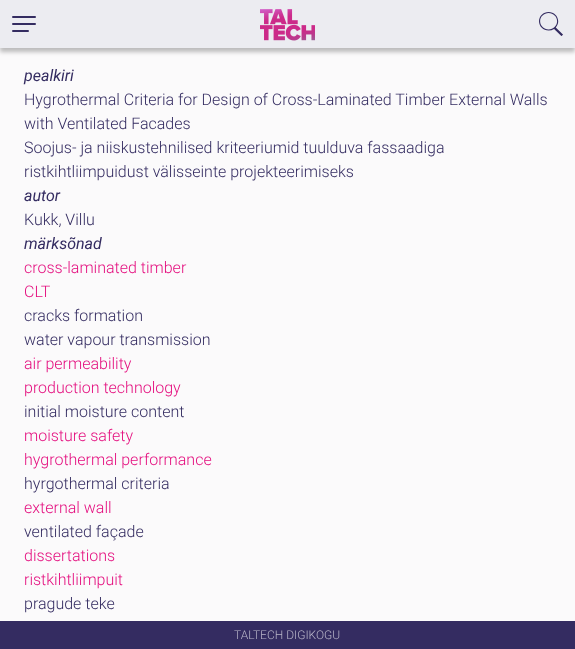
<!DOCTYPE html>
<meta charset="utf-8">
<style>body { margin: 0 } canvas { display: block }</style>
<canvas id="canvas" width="575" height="649"></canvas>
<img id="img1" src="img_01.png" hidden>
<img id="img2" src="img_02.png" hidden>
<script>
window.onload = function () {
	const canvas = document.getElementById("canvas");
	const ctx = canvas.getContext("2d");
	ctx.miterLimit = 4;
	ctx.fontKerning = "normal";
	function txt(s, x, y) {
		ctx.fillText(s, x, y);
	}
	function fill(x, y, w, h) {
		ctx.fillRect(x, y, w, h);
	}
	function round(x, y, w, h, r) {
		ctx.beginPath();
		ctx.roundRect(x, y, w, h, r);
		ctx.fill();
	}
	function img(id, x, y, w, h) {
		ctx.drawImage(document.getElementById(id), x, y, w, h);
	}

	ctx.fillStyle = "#FBFAFB";
	fill(0, 0, 575, 649);
	ctx.fillStyle = "rgba(0, 0, 0, 0.25)";
	ctx.filter = "blur(2px)";
	ctx.beginPath();
	ctx.rect(0, 4, 575, 48);
	ctx.fill();
	ctx.filter = "none";
	ctx.fillStyle = "#ECECF1";
	fill(0, 0, 575, 48);
	ctx.fillStyle = "#342C61";
	round(12, 23, 24, 2, 1);
	round(12, 16, 24, 2, 1);
	round(12, 30, 17, 2, 1);
	img("img1", 260, 9, 55, 32);
	img("img2", 539, 12, 24, 24);
	fill(0, 621, 575, 28);
	ctx.font = "italic 16px Roboto";
	txt("pealkiri", 24, 81);
	ctx.font = "300 16px Roboto";
	txt("Hygrothermal Criteria for Design of Cross-Laminated Timber External Walls", 24, 105);
	txt("with Ventilated Facades", 24, 129);
	txt("Soojus- ja niiskustehnilised kriteeriumid tuulduva fassaadiga", 24, 153);
	txt("ristkihtliimpuidust välisseinte projekteerimiseks", 24, 177);
	ctx.font = "italic 16px Roboto";
	txt("autor", 24, 201);
	ctx.font = "300 16px Roboto";
	txt("Kukk, Villu", 24, 225);
	ctx.font = "italic 16px Roboto";
	txt("märksõnad", 24, 249);
	ctx.font = "300 16px Roboto";
	ctx.fillStyle = "#E40D7E";
	txt("cross-laminated timber", 24, 273);
	txt("CLT", 24, 297);
	ctx.fillStyle = "#342C61";
	txt("cracks formation", 24, 321);
	txt("water vapour transmission", 24, 345);
	ctx.fillStyle = "#E40D7E";
	txt("air permeability", 24, 369);
	txt("production technology", 24, 393);
	ctx.fillStyle = "#342C61";
	txt("initial moisture content", 24, 417);
	ctx.fillStyle = "#E40D7E";
	txt("moisture safety", 24, 441);
	txt("hygrothermal performance", 24, 465);
	ctx.fillStyle = "#342C61";
	txt("hyrgothermal criteria", 24, 489);
	ctx.fillStyle = "#E40D7E";
	txt("external wall", 24, 513);
	ctx.fillStyle = "#342C61";
	txt("ventilated façade", 24, 537);
	ctx.fillStyle = "#E40D7E";
	txt("dissertations", 24, 561);
	txt("ristkihtliimpuit", 24, 585);
	ctx.fillStyle = "#342C61";
	txt("pragude teke", 24, 609);
	ctx.font = "300 12px Roboto";
	ctx.fillStyle = "#B8B5C8";
	txt("TALTECH DIGIKOGU", 234, 639);
};
</script>
